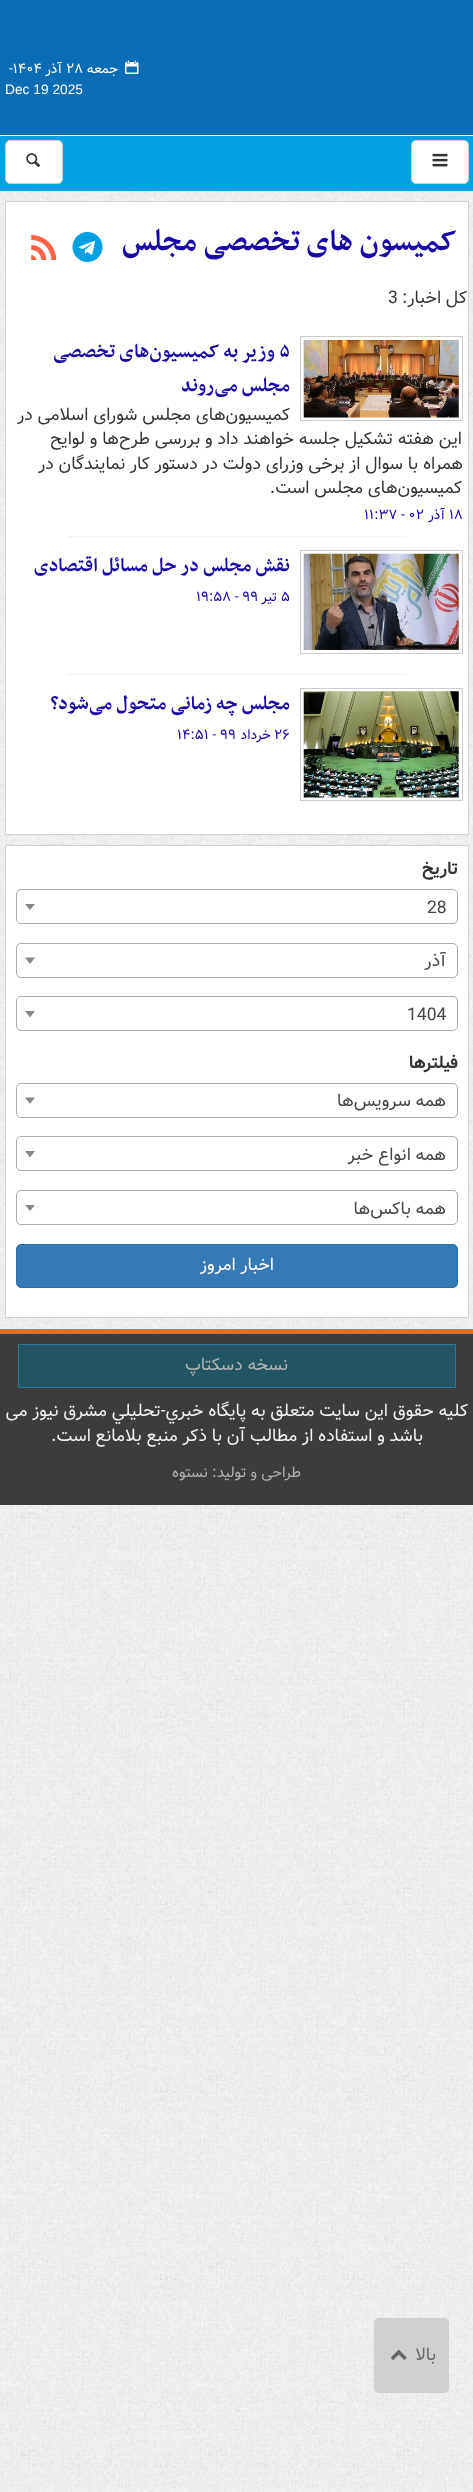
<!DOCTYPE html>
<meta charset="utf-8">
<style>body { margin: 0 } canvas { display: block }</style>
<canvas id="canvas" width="473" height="2492"></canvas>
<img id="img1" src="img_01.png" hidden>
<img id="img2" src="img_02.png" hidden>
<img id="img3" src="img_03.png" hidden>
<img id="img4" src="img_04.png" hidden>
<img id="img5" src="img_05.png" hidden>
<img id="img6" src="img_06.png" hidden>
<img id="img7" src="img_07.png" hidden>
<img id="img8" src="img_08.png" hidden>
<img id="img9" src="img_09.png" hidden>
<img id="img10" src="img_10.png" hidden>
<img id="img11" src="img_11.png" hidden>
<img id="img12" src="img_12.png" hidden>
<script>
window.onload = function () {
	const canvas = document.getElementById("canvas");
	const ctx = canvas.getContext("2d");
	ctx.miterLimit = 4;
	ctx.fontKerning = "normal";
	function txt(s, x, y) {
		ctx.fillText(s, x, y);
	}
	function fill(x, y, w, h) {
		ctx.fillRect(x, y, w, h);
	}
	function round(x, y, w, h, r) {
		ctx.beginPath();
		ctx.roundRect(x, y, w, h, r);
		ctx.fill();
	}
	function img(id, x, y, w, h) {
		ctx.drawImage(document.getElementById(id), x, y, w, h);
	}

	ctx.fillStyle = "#FFFFFF";
	fill(0, 0, 473, 2492);
	img("img1", 0, 191, 473, 2301);
	ctx.fillStyle = "#096CB5";
	fill(0, 0, 473, 135);
	img("img2", 125, 60, 14, 14);
	ctx.fillStyle = "#01A0E1";
	fill(0, 136, 473, 55);
	ctx.fillStyle = "#FFFFFF";
	ctx.beginPath();
	ctx.roundRect(411.5, 140.5, 57, 43, 4.5);
	ctx.fill();
	ctx.strokeStyle = "#CCCCCC";
	ctx.stroke();
	img("img3", 432, 153, 16, 14);
	ctx.beginPath();
	ctx.roundRect(5.5, 140.5, 57, 43, 4.5);
	ctx.fill();
	ctx.stroke();
	img("img4", 26, 153, 14, 14);
	fill(6, 202, 462, 632);
	ctx.fillStyle = "#D1D1D1";
	fill(5, 201, 464, 1);
	fill(468, 201, 1, 634);
	fill(5, 201, 1, 85);
	img("img5", 72, 232, 31, 30);
	img("img6", 31, 235, 26, 25);
	fill(5, 834, 464, 1);
	fill(5, 286, 1, 549);
	ctx.strokeRect(300.5, 336.5, 162, 84);
	img("img7", 303, 340, 156, 78);
	img("img8", 67, 536, 338, 2);
	ctx.strokeRect(300.5, 550.5, 162, 103);
	img("img9", 303, 553, 156, 97);
	img("img10", 67, 673, 338, 2);
	ctx.strokeRect(300.5, 688.5, 162, 112);
	img("img11", 303, 691, 156, 107);
	ctx.fillStyle = "#FFFFFF";
	ctx.beginPath();
	ctx.rect(5.5, 845.5, 463, 472);
	ctx.fill();
	ctx.strokeStyle = "#D1D1D1";
	ctx.stroke();
	ctx.beginPath();
	ctx.roundRect(16.5, 889.5, 441, 34, 4.5);
	ctx.strokeStyle = "#AAAAAA";
	ctx.stroke();
	ctx.fillStyle = "#888888";
	ctx.beginPath();
	ctx.moveTo(25, 904);
	ctx.lineTo(35, 904);
	ctx.lineTo(30, 910);
	ctx.closePath();
	ctx.fill();
	ctx.beginPath();
	ctx.roundRect(16.5, 943.5, 441, 34, 4.5);
	ctx.stroke();
	ctx.beginPath();
	ctx.moveTo(25, 957.5);
	ctx.lineTo(35, 957.5);
	ctx.lineTo(30, 964);
	ctx.closePath();
	ctx.fill();
	ctx.beginPath();
	ctx.roundRect(16.5, 996.5, 441, 34, 4.5);
	ctx.stroke();
	ctx.beginPath();
	ctx.moveTo(25, 1011);
	ctx.lineTo(35, 1011);
	ctx.lineTo(30, 1017.5);
	ctx.closePath();
	ctx.fill();
	ctx.beginPath();
	ctx.roundRect(16.5, 1083.5, 441, 34, 4.5);
	ctx.stroke();
	ctx.beginPath();
	ctx.moveTo(25, 1097.5);
	ctx.lineTo(35, 1097.5);
	ctx.lineTo(30, 1104);
	ctx.closePath();
	ctx.fill();
	ctx.beginPath();
	ctx.roundRect(16.5, 1136.5, 441, 34, 4.5);
	ctx.stroke();
	ctx.beginPath();
	ctx.moveTo(25, 1151);
	ctx.lineTo(35, 1151);
	ctx.lineTo(30, 1157.5);
	ctx.closePath();
	ctx.fill();
	ctx.beginPath();
	ctx.roundRect(16.5, 1190.5, 441, 34, 4.5);
	ctx.stroke();
	ctx.beginPath();
	ctx.moveTo(25, 1205);
	ctx.lineTo(35, 1205);
	ctx.lineTo(30, 1211);
	ctx.closePath();
	ctx.fill();
	ctx.fillStyle = "#337AB7";
	ctx.beginPath();
	ctx.roundRect(16.5, 1244.5, 441, 43, 4.5);
	ctx.fill();
	ctx.strokeStyle = "#2E6DA4";
	ctx.stroke();
	ctx.fillStyle = "#3C3C3C";
	fill(0, 1334, 473, 171);
	ctx.fillStyle = "#F56A03";
	fill(0, 1329, 473, 5);
	ctx.fillStyle = "#235461";
	ctx.beginPath();
	ctx.rect(18.5, 1344.5, 437, 43);
	ctx.fill();
	ctx.strokeStyle = "#2C7A93";
	ctx.stroke();
	ctx.fillStyle = "rgba(204, 204, 204, 0.9)";
	round(374, 2318, 75, 75, 5);
	img("img12", 391, 2349, 16, 11);
	ctx.direction = "rtl";
	ctx.font = "13.75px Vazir";
	ctx.fillStyle = "#FFFFFF";
	txt("جمعه", 118, 73);
	ctx.direction = "ltr";
	txt("۲۸", 66, 73);
	ctx.direction = "rtl";
	txt("آذر", 62, 73);
	ctx.direction = "ltr";
	txt("-۱۴۰۴", 9, 73);
	ctx.font = "13.75px Liberation Sans";
	txt("Dec 19 2025", 5, 94);
	ctx.direction = "rtl";
	ctx.font = "bold 35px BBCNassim";
	ctx.fillStyle = "#1809A6";
	txt("کمیسون های تخصصی مجلس", 457, 250);
	ctx.font = "17.5px Vazir";
	ctx.fillStyle = "#333333";
	txt("کل اخبار:", 467, 303);
	ctx.direction = "ltr";
	txt("3", 388, 303);
	ctx.font = "bold 22.5px BBCNassim";
	ctx.fillStyle = "#1809A6";
	txt("۵", 279, 357);
	ctx.direction = "rtl";
	txt("وزیر به کمیسیون‌های تخصصی", 275, 357);
	txt("مجلس می‌روند", 290, 391);
	ctx.font = "17.5px Vazir";
	ctx.fillStyle = "#333333";
	txt("کمیسیون‌های مجلس شورای اسلامی در", 290, 420);
	txt("این هفته تشکیل جلسه خواهند داد و بررسی طرح‌ها و لوایح", 462, 444);
	txt("همراه با سوال از برخی وزرای دولت در دستور کار نمایندگان در", 463, 469);
	txt("کمیسیون‌های مجلس است.", 462, 493);
	ctx.direction = "ltr";
	ctx.font = "13.75px Vazir";
	ctx.fillStyle = "#1809A6";
	txt("۱۸", 449, 519);
	ctx.direction = "rtl";
	txt("آذر", 445, 519);
	ctx.direction = "ltr";
	txt("۱۱:۳۷ - ۰۲", 364, 519);
	ctx.direction = "rtl";
	ctx.font = "bold 22.5px BBCNassim";
	txt("نقش مجلس در حل مسائل اقتصادی", 290, 571);
	ctx.direction = "ltr";
	ctx.font = "13.75px Vazir";
	txt("۵", 281, 601);
	ctx.direction = "rtl";
	txt("تیر", 277, 601);
	ctx.direction = "ltr";
	txt("۱۹:۵۸ - ۹۹", 196, 601);
	ctx.direction = "rtl";
	ctx.font = "bold 22.5px BBCNassim";
	txt("مجلس چه زمانی متحول‌ می‌شود؟", 290, 709);
	ctx.direction = "ltr";
	ctx.font = "13.75px Vazir";
	txt("۲۶", 274, 739);
	ctx.direction = "rtl";
	txt("خرداد", 271, 739);
	ctx.direction = "ltr";
	txt("۱۴:۵۱ - ۹۹", 177, 739);
	ctx.direction = "rtl";
	ctx.font = "bold 17.5px Vazir";
	ctx.fillStyle = "#333333";
	txt("تاریخ", 458, 874);
	ctx.direction = "ltr";
	ctx.font = "17.5px Vazir";
	ctx.fillStyle = "#444444";
	txt("28", 427, 913);
	ctx.direction = "rtl";
	txt("آذر", 446, 966);
	ctx.direction = "ltr";
	txt("1404", 407, 1020);
	ctx.direction = "rtl";
	ctx.font = "bold 17.5px Vazir";
	ctx.fillStyle = "#333333";
	txt("فیلترها", 458, 1068);
	ctx.font = "17.5px Vazir";
	ctx.fillStyle = "#444444";
	txt("همه سرویس‌ها", 446, 1106);
	txt("همه انواع خبر", 446, 1160);
	txt("همه باکس‌ها", 446, 1214);
	ctx.fillStyle = "#FFFFFF";
	txt("اخبار امروز", 274, 1270);
	ctx.fillStyle = "#B4B4B4";
	txt("نسخه دسکتاپ", 288, 1370);
	ctx.fillStyle = "#F4F3F3";
	txt("کليه حقوق اين سايت متعلق به پایگاه خبري-تحليلي مشرق نيوز می", 468, 1416);
	txt("باشد و استفاده از مطالب آن با ذکر منبع بلامانع است.", 423, 1441);
	ctx.font = "15px Vazir";
	ctx.fillStyle = "#B4B4B4";
	txt("طراحی و تولید: نستوه", 301, 1477);
	ctx.font = "17.5px Vazir";
	ctx.fillStyle = "#666666";
	txt("بالا", 436, 2360);
};
</script>
